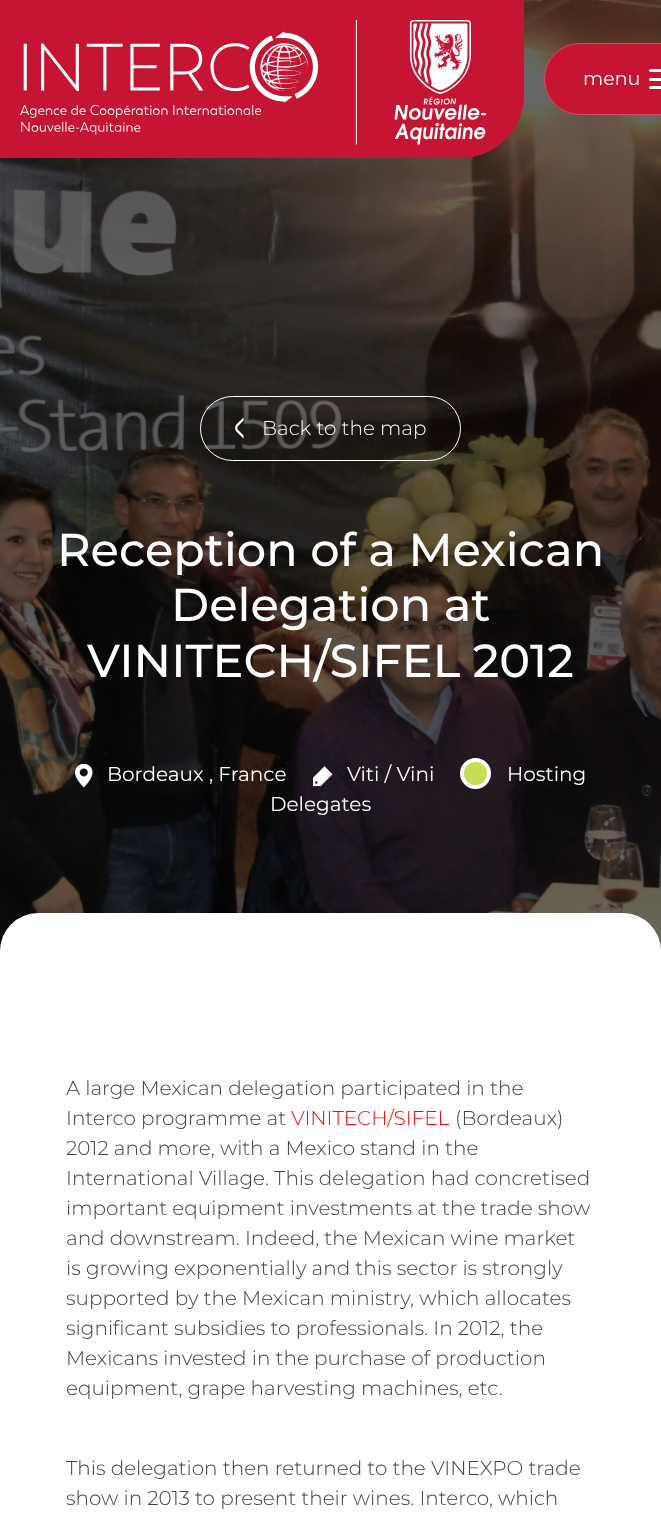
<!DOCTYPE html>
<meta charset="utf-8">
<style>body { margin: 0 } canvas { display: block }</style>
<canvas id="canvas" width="661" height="1520"></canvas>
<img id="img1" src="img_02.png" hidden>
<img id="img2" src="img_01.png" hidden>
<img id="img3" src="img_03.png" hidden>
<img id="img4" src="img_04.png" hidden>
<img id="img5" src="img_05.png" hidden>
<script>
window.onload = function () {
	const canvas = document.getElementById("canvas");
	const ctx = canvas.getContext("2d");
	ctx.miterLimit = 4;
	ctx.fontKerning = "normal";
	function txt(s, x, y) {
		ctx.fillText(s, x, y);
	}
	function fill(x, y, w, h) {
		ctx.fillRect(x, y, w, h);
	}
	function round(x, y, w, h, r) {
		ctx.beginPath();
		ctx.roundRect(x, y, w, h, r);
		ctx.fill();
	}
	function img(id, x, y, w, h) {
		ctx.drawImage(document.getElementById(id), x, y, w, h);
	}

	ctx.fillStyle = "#FFFFFF";
	fill(0, 0, 661, 1520);
	img("img1", 0, 0, 661, 951);
	ctx.fillStyle = "#C51532";
	ctx.beginPath();
	ctx.roundRect(0, 0, 524, 158, [0, 0, 63, 0]);
	ctx.fill();
	img("img2", 20, 20, 467, 125);
	round(544, 43, 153, 72, 36);
	ctx.beginPath();
	ctx.roundRect(544.5, 43.5, 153, 71, 35.5);
	ctx.strokeStyle = "rgba(255, 255, 255, 0.25)";
	ctx.stroke();
	ctx.fillStyle = "#FFFFFF";
	round(649, 69, 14, 3, 1.5);
	round(649, 78, 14, 3, 1.5);
	round(649, 86, 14, 3, 1.5);
	ctx.beginPath();
	ctx.roundRect(200.5, 396.5, 260, 64, 32);
	ctx.strokeStyle = "#FFFFFF";
	ctx.stroke();
	img("img3", 235, 418, 9, 21);
	img("img4", 75, 764, 18, 24);
	ctx.fillStyle = "#C8DD52";
	ctx.beginPath();
	ctx.arc(475.5, 773.5, 13.5, 0, Math.PI * 2);
	ctx.fill();
	ctx.lineWidth = 4;
	ctx.stroke();
	img("img5", 313, 766, 20, 20);
	ctx.fillStyle = "#FFFFFF";
	round(0, 913, 661, 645, 38);
	ctx.font = "19px Montserrat";
	txt("menu", 583, 85);
	ctx.font = "300 20px Montserrat";
	txt("Back to the map", 262, 435);
	ctx.font = "500 46.25px Montserrat";
	txt("Reception of a Mexican", 57, 566);
	txt("Delegation at", 171, 621);
	txt("VINITECH/SIFEL 2012", 87, 677);
	ctx.font = "20px Montserrat";
	txt("Bordeaux , France", 107, 781);
	txt("Viti / Vini", 347, 781);
	txt("Hosting", 507, 781);
	txt("Delegates", 270, 811);
	ctx.font = "300 20px Montserrat";
	ctx.fillStyle = "#404040";
	txt("A large Mexican delegation participated in the", 66, 1095);
	txt("Interco programme at", 66, 1125);
	ctx.fillStyle = "#FF0000";
	txt("VINITECH/SIFEL", 291, 1125);
	ctx.fillStyle = "#404040";
	txt("(Bordeaux)", 455, 1125);
	txt("2012 and more, with a Mexico stand in the", 66, 1155);
	txt("International Village. This delegation had concretised", 66, 1185);
	txt("important equipment investments at the trade show", 66, 1215);
	txt("and downstream. Indeed, the Mexican wine market", 66, 1245);
	txt("is growing exponentially and this sector is strongly", 66, 1275);
	txt("supported by the Mexican ministry, which allocates", 66, 1305);
	txt("significant subsidies to professionals. In 2012, the", 66, 1335);
	txt("Mexicans invested in the purchase of production", 66, 1365);
	txt("equipment, grape harvesting machines, etc.", 66, 1395);
	txt("This delegation then returned to the VINEXPO trade", 66, 1475);
	txt("show in 2013 to present their wines. Interco, which", 66, 1505);
};
</script>
